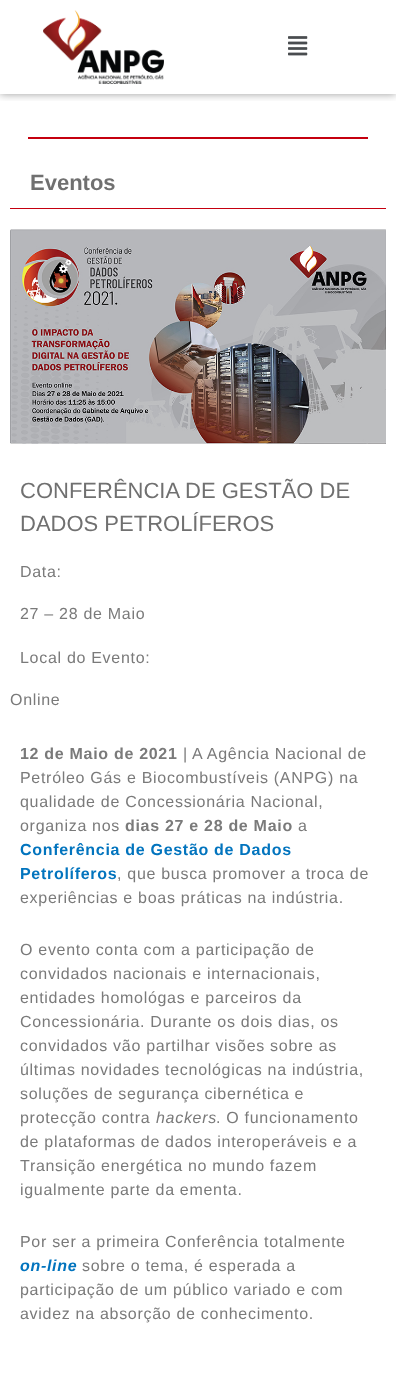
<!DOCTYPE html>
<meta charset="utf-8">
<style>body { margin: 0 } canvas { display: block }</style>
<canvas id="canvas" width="396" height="1381"></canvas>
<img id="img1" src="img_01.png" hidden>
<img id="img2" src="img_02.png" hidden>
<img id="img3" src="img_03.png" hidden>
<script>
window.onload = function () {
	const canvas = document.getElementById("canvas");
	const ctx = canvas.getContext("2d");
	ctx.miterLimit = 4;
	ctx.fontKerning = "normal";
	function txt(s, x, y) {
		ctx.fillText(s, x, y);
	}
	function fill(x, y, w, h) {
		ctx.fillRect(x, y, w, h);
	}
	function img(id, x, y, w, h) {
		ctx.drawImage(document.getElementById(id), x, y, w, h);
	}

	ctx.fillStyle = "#FFFFFF";
	fill(0, 0, 396, 1381);
	ctx.save();
	ctx.beginPath();
	ctx.rect(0, 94, 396, 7);
	ctx.clip();
	ctx.fillStyle = "rgba(0, 0, 0, 0.4)";
	ctx.filter = "blur(4.5px)";
	ctx.beginPath();
	ctx.rect(0, 0, 396, 94);
	ctx.fill();
	ctx.filter = "none";
	ctx.restore();
	img("img1", 43, 10, 121, 74);
	img("img2", 288, 36, 20, 20);
	ctx.fillStyle = "#C5000F";
	fill(10, 208, 376, 1);
	fill(28, 137, 340, 2);
	img("img3", 10, 229, 376, 215);
	ctx.font = "bold 22px Liberation Sans";
	ctx.fillStyle = "#707070";
	txt("Eventos", 30, 190);
	ctx.font = "22px Liberation Sans";
	txt("CONFERÊNCIA DE GESTÃO DE", 20, 498);
	txt("DADOS PETROLÍFEROS", 20, 531);
	ctx.letterSpacing = "0.7px";
	ctx.font = "16px Liberation Sans";
	ctx.fillStyle = "#7A7A7A";
	txt("Data:", 20, 577);
	txt("27 – 28 de Maio", 20, 619);
	txt("Local do Evento:", 20, 663);
	txt("Online", 10, 705);
	ctx.font = "bold 16px Liberation Sans";
	txt("12 de Maio de 2021", 20, 759);
	ctx.font = "16px Liberation Sans";
	txt("| A Agência Nacional de", 183, 759);
	txt("Petróleo Gás e Biocombustíveis (ANPG) na", 20, 783);
	txt("qualidade de Concessionária Nacional,", 20, 807);
	txt("organiza nos", 20, 831);
	ctx.font = "bold 16px Liberation Sans";
	txt("dias 27 e 28 de Maio", 125, 831);
	ctx.font = "16px Liberation Sans";
	txt("a", 298, 831);
	ctx.font = "bold 16px Liberation Sans";
	ctx.fillStyle = "#0274BE";
	txt("Conferência de Gestão de Dados", 20, 855);
	txt("Petrolíferos", 20, 879);
	ctx.font = "16px Liberation Sans";
	ctx.fillStyle = "#7A7A7A";
	txt(", que busca promover a troca de", 117, 879);
	txt("experiências e boas práticas na indústria.", 20, 903);
	txt("O evento conta com a participação de", 20, 955);
	txt("convidados nacionais e internacionais,", 20, 979);
	txt("entidades homológas e parceiros da", 20, 1003);
	txt("Concessionária. Durante os dois dias, os", 20, 1027);
	txt("convidados vão partilhar visões sobre as", 20, 1051);
	txt("últimas novidades tecnológicas na indústria,", 20, 1075);
	txt("soluções de segurança cibernética e", 20, 1099);
	txt("protecção contra", 20, 1123);
	ctx.font = "italic 16px Liberation Sans";
	txt("hackers", 156, 1123);
	ctx.font = "16px Liberation Sans";
	txt(". O funcionamento", 216, 1123);
	txt("de plataformas de dados interoperáveis e a", 20, 1147);
	txt("Transição energética no mundo fazem", 20, 1171);
	txt("igualmente parte da ementa.", 20, 1195);
	txt("Por ser a primeira Conferência totalmente", 20, 1247);
	ctx.font = "italic bold 16px Liberation Sans";
	ctx.fillStyle = "#0274BE";
	txt("on-line", 20, 1271);
	ctx.font = "16px Liberation Sans";
	ctx.fillStyle = "#7A7A7A";
	txt("sobre o tema, é esperada a", 82, 1271);
	txt("participação de um público variado e com", 20, 1295);
	txt("avidez na absorção de conhecimento.", 20, 1319);
};
</script>
